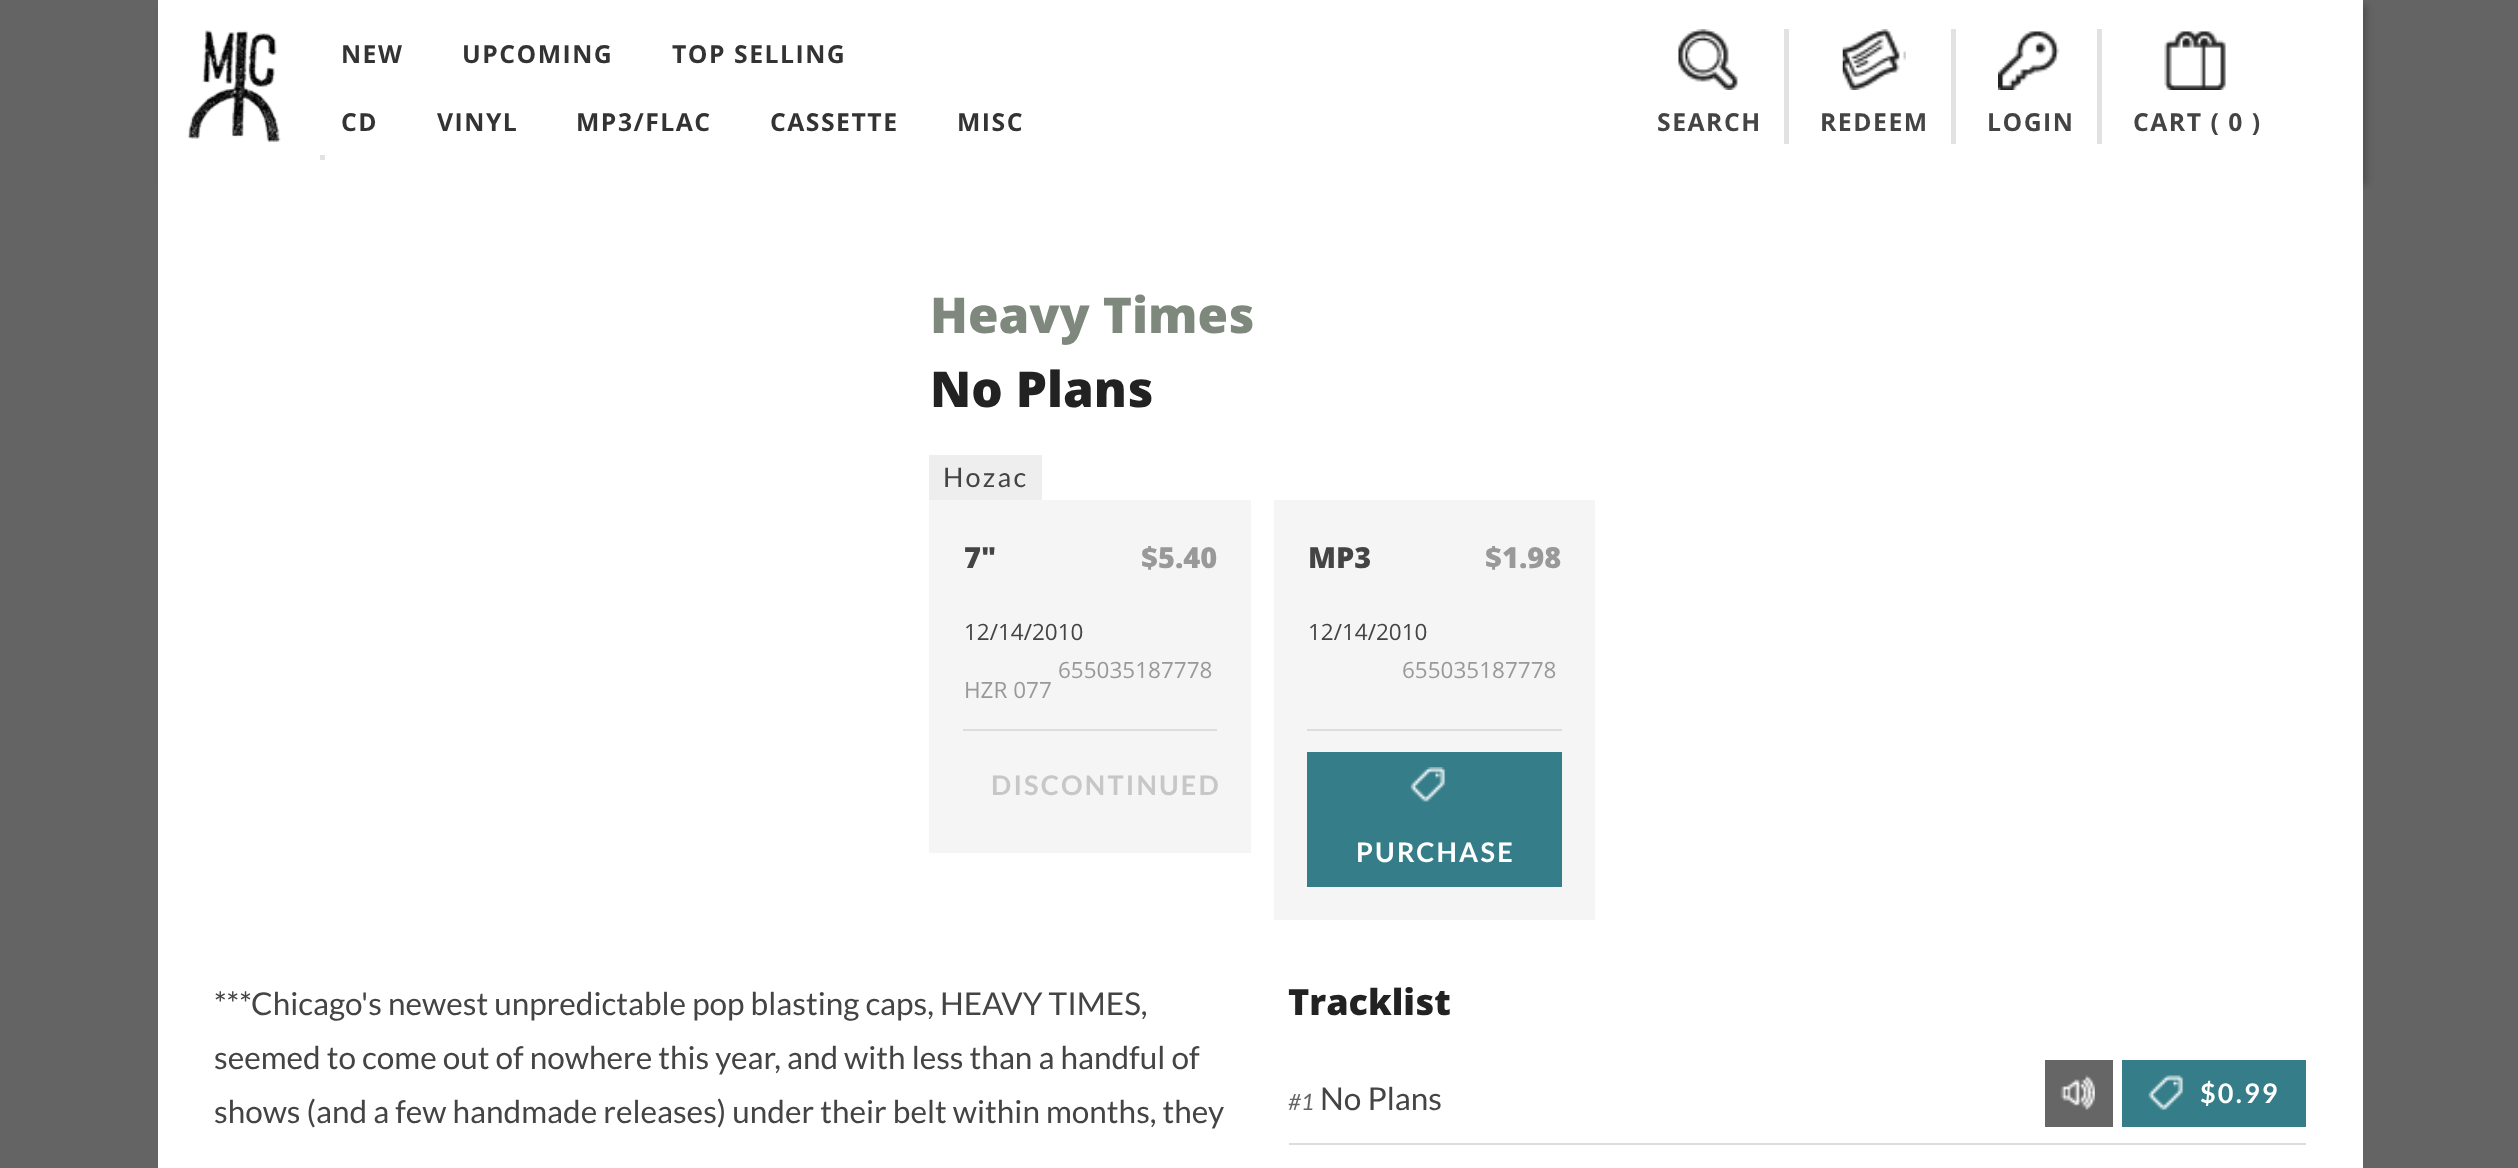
<!DOCTYPE html>
<meta charset="utf-8">
<style>body { margin: 0 } canvas { display: block }</style>
<canvas id="canvas" width="2518" height="1168"></canvas>
<img id="img1" src="img_01.png" hidden>
<img id="img2" src="img_02.png" hidden>
<img id="img3" src="img_03.png" hidden>
<img id="img4" src="img_04.png" hidden>
<img id="img5" src="img_05.png" hidden>
<img id="img6" src="img_06.png" hidden>
<img id="img7" src="img_07.png" hidden>
<img id="img8" src="img_08.png" hidden>
<script>
window.onload = function () {
	const canvas = document.getElementById("canvas");
	const ctx = canvas.getContext("2d");
	ctx.miterLimit = 4;
	ctx.fontKerning = "normal";
	function txt(s, x, y) {
		ctx.fillText(s, x, y);
	}
	function fill(x, y, w, h) {
		ctx.fillRect(x, y, w, h);
	}
	function img(id, x, y, w, h) {
		ctx.drawImage(document.getElementById(id), x, y, w, h);
	}

	ctx.fillStyle = "#646464";
	fill(0, 0, 2518, 1168);
	ctx.fillStyle = "rgba(0, 0, 0, 0.2)";
	ctx.filter = "blur(3.5px)";
	ctx.beginPath();
	ctx.rect(162, 5, 2205, 180);
	ctx.fill();
	ctx.filter = "none";
	ctx.fillStyle = "#FFFFFF";
	fill(158, 0, 2205, 1168);
	ctx.fillStyle = "#E2E2E2";
	fill(320, 155, 5, 5);
	img("img1", 187, 30, 94, 112);
	fill(1784, 29, 5, 115);
	img("img2", 1678, 29, 60, 61);
	fill(1951, 29, 5, 115);
	img("img3", 1842, 29, 64, 61);
	fill(2097, 29, 5, 115);
	img("img4", 1998, 31, 62, 59);
	img("img5", 2164, 31, 62, 59);
	ctx.fillStyle = "#EEEEEE";
	fill(929, 455, 113, 45);
	ctx.fillStyle = "#F5F5F5";
	fill(929, 500, 322, 353);
	ctx.fillStyle = "#DDDDDD";
	fill(963, 729, 254, 2);
	ctx.fillStyle = "#F5F5F5";
	fill(1274, 500, 321, 420);
	ctx.fillStyle = "#DDDDDD";
	fill(1307, 729, 255, 2);
	ctx.fillStyle = "#347D89";
	fill(1307, 752, 255, 135);
	img("img6", 1410, 767, 36, 35);
	ctx.fillStyle = "#666666";
	fill(2045, 1060, 68, 67);
	img("img7", 2060, 1075, 35, 35);
	ctx.fillStyle = "#347D89";
	fill(2122, 1060, 184, 67);
	img("img8", 2148, 1075, 36, 35);
	ctx.fillStyle = "#DDDDDD";
	fill(1289, 1143, 1017, 2);
	ctx.letterSpacing = "1.5px";
	ctx.font = "bold 24.75px Open Sans";
	ctx.fillStyle = "#333333";
	txt("NEW", 341, 63);
	txt("UPCOMING", 462, 63);
	txt("TOP SELLING", 672, 63);
	txt("CD", 341, 131);
	txt("VINYL", 437, 131);
	txt("MP3/FLAC", 576, 131);
	txt("CASSETTE", 770, 131);
	txt("MISC", 957, 131);
	ctx.fillStyle = "#444444";
	txt("SEARCH", 1657, 131);
	txt("REDEEM", 1820, 131);
	txt("LOGIN", 1987, 131);
	txt("CART ( 0 )", 2133, 131);
	ctx.letterSpacing = "0px";
	ctx.font = "800 49.5px Open Sans";
	ctx.fillStyle = "#7E887D";
	txt("Heavy Times", 930, 333);
	ctx.fillStyle = "#222222";
	txt("No Plans", 930, 407);
	ctx.letterSpacing = "2.2px";
	ctx.font = "27px Lato";
	ctx.fillStyle = "#444444";
	txt("Hozac", 943, 487);
	ctx.letterSpacing = "0px";
	ctx.font = "800 29px Open Sans";
	txt("7\"", 964, 568);
	ctx.fillStyle = "#999999";
	txt("$5.40", 1141, 568);
	ctx.font = "22.5px Open Sans";
	ctx.fillStyle = "#444444";
	txt("12/14/2010", 964, 640);
	ctx.fillStyle = "#999999";
	txt("655035187778", 1058, 678);
	txt("HZR 077", 964, 698);
	ctx.letterSpacing = "2.2px";
	ctx.font = "bold 27px Lato";
	ctx.fillStyle = "#C7C7C7";
	txt("DISCONTINUED", 991, 795);
	ctx.letterSpacing = "0px";
	ctx.font = "800 29px Open Sans";
	ctx.fillStyle = "#444444";
	txt("MP3", 1308, 568);
	ctx.fillStyle = "#999999";
	txt("$1.98", 1485, 568);
	ctx.font = "22.5px Open Sans";
	ctx.fillStyle = "#444444";
	txt("12/14/2010", 1308, 640);
	ctx.fillStyle = "#999999";
	txt("655035187778", 1402, 678);
	ctx.letterSpacing = "2.2px";
	ctx.font = "bold 27px Lato";
	ctx.fillStyle = "#FFFFFF";
	txt("PURCHASE", 1356, 862);
	ctx.letterSpacing = "0px";
	ctx.font = "31.5px Lato";
	ctx.fillStyle = "#444444";
	txt("***Chicago's newest unpredictable pop blasting caps, HEAVY TIMES,", 214, 1015);
	txt("seemed to come out of nowhere this year, and with less than a handful of", 214, 1069);
	txt("shows (and a few handmade releases) under their belt within months, they", 214, 1123);
	ctx.font = "800 36px Open Sans";
	ctx.fillStyle = "#222222";
	txt("Tracklist", 1288, 1015);
	ctx.font = "italic 22.5px Lato";
	ctx.fillStyle = "#646464";
	txt("#1", 1288, 1110);
	ctx.font = "31.5px Lato";
	ctx.fillStyle = "#444444";
	txt("No Plans", 1320, 1110);
	ctx.letterSpacing = "2.2px";
	ctx.font = "bold 27px Lato";
	ctx.fillStyle = "#FFFFFF";
	txt("$0.99", 2200, 1103);
};
</script>
